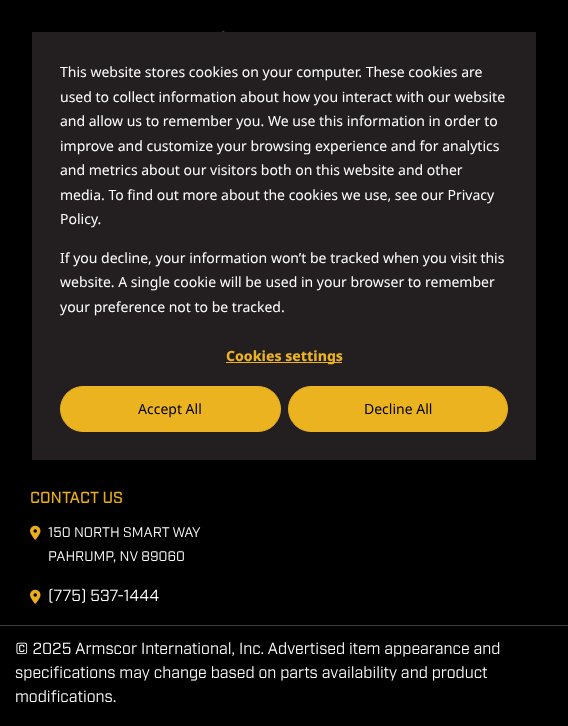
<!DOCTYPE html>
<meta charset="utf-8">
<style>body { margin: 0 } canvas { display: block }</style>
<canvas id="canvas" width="568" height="726"></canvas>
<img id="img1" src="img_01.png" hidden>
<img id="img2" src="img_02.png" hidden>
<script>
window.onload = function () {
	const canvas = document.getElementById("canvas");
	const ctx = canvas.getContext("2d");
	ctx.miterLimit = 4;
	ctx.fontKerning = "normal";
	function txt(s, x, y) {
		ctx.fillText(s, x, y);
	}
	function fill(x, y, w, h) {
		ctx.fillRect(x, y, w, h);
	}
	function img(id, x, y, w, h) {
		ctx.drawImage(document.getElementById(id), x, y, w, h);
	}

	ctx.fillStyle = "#000000";
	fill(0, 0, 568, 726);
	ctx.fillStyle = "#231F20";
	fill(32, 32, 504, 428);
	ctx.fillStyle = "#EBB320";
	fill(226, 362, 116, 1);
	ctx.beginPath();
	ctx.roundRect(60.5, 386.5, 220, 45, 22.5);
	ctx.fill();
	ctx.strokeStyle = "#EBB320";
	ctx.stroke();
	ctx.beginPath();
	ctx.roundRect(288.5, 386.5, 219, 45, 22.5);
	ctx.fill();
	ctx.stroke();
	img("img1", 217, 30, 12, 2);
	img("img2", 30, 525, 11, 15);
	img("img2", 30, 589, 11, 15);
	ctx.fillStyle = "#3E3E3E";
	fill(0, 625, 568, 1);
	ctx.font = "14px Noto Sans";
	ctx.fillStyle = "#FFFFFF";
	txt("This website stores cookies on your computer. These cookies are", 60, 77);
	txt("used to collect information about how you interact with our website", 60, 102);
	txt("and allow us to remember you. We use this information in order to", 60, 126);
	txt("improve and customize your browsing experience and for analytics", 60, 151);
	txt("and metrics about our visitors both on this website and other", 60, 175);
	txt("media. To find out more about the cookies we use, see our Privacy", 60, 200);
	txt("Policy.", 60, 224);
	txt("If you decline, your information won’t be tracked when you visit this", 60, 263);
	txt("website. A single cookie will be used in your browser to remember", 60, 287);
	txt("your preference not to be tracked.", 60, 312);
	ctx.font = "800 14px Noto Sans";
	ctx.fillStyle = "#EBB320";
	txt("Cookies settings", 226, 361);
	ctx.font = "14px Noto Sans";
	ctx.fillStyle = "#000000";
	txt("Accept All", 138, 414);
	txt("Decline All", 364, 414);
	ctx.font = "500 16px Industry";
	ctx.fillStyle = "#EAAE1A";
	txt("CONTACT US", 30, 503);
	ctx.font = "14px Industry";
	ctx.fillStyle = "#FFFFFF";
	txt("150 NORTH SMART WAY", 48, 537);
	txt("PAHRUMP, NV 89060", 48, 561);
	ctx.font = "16px Industry";
	txt("(775) 537-1444", 48, 601);
	txt("© 2025 Armscor International, Inc. Advertised item appearance and", 15, 654);
	txt("specifications may change based on parts availability and product", 15, 678);
	txt("modifications.", 15, 702);
};
</script>
